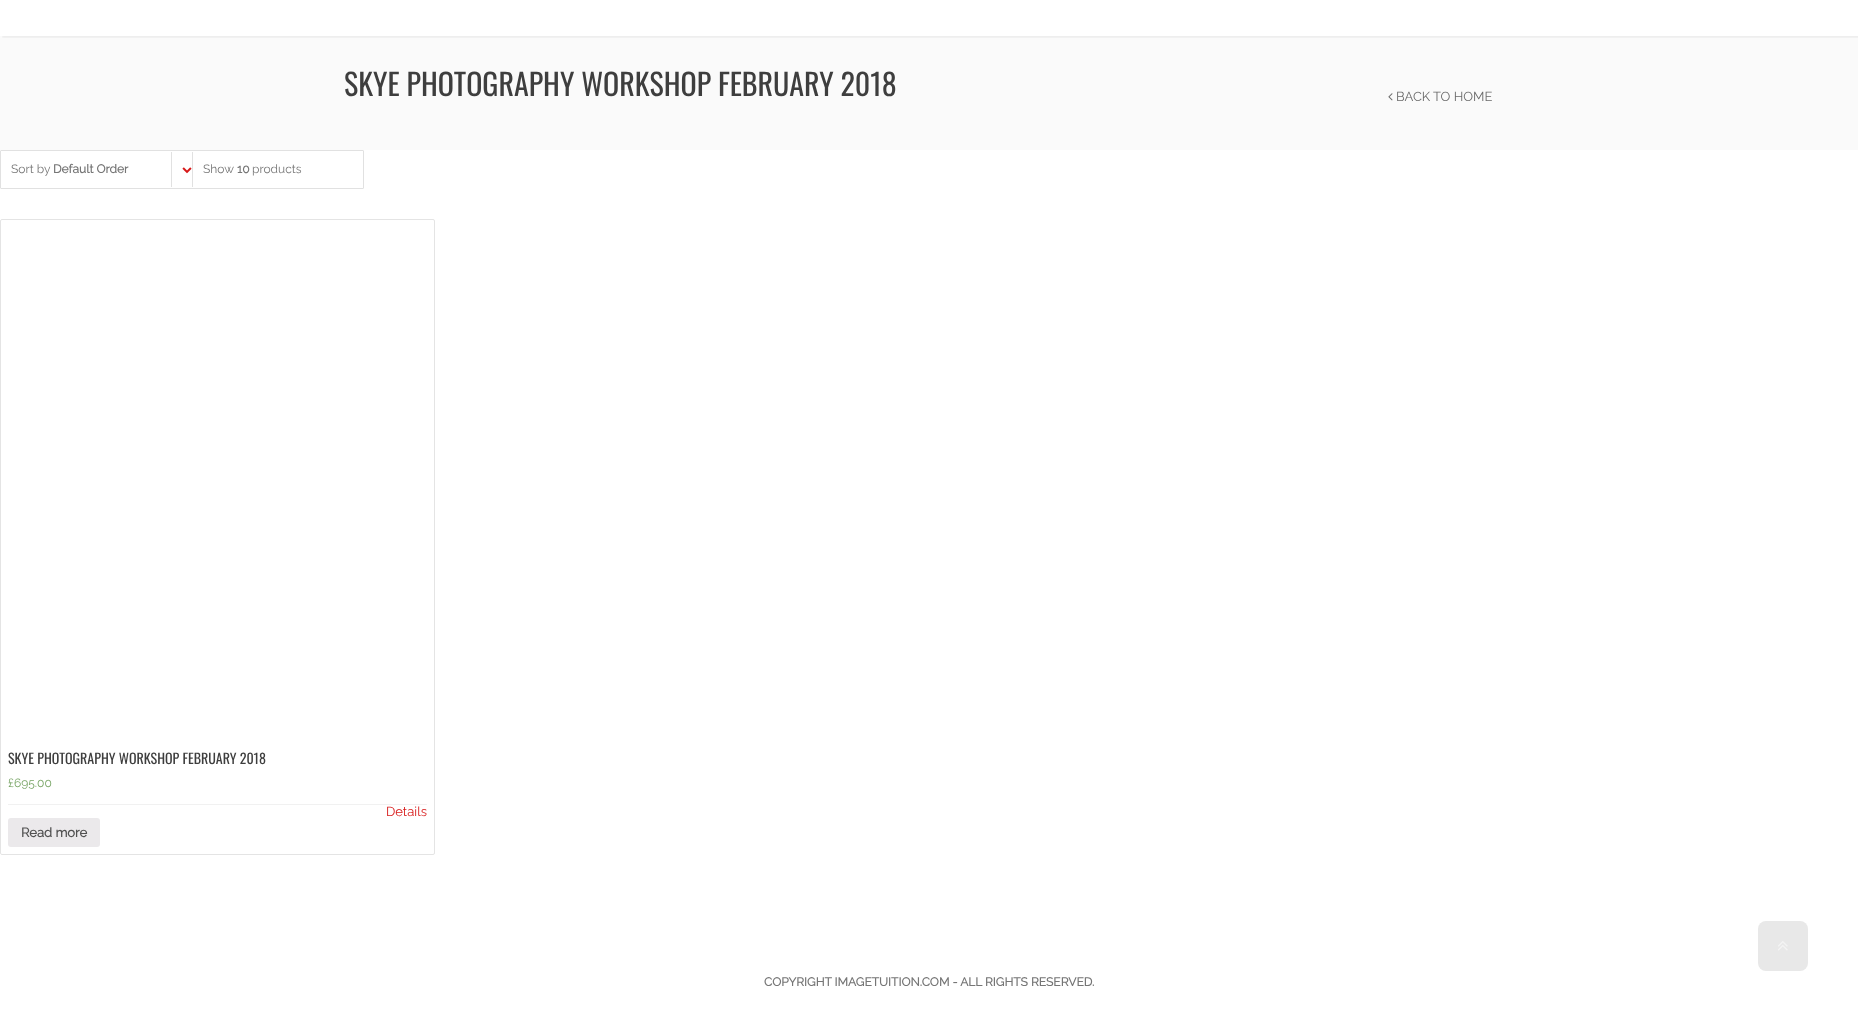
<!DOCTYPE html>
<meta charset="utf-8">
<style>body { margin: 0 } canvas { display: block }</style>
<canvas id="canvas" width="1858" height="1021"></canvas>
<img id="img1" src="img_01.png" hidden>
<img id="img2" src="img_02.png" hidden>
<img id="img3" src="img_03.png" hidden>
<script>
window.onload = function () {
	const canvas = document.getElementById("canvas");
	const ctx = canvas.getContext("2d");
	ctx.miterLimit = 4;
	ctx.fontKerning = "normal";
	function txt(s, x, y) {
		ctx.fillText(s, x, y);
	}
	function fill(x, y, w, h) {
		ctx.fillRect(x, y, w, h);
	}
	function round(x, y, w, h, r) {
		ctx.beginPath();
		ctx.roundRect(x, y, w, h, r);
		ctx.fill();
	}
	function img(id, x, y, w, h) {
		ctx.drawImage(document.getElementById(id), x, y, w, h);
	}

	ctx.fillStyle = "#FFFFFF";
	fill(0, 0, 1858, 1021);
	ctx.fillStyle = "#FAFAFA";
	fill(0, 36, 1858, 114);
	ctx.save();
	ctx.beginPath();
	ctx.rect(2, 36, 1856, 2);
	ctx.clip();
	ctx.fillStyle = "rgba(0, 0, 0, 0.05)";
	ctx.filter = "blur(1px)";
	ctx.beginPath();
	ctx.rect(2, -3, 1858, 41);
	ctx.fill();
	ctx.filter = "none";
	ctx.restore();
	img("img1", 1388, 93, 5, 8);
	ctx.beginPath();
	ctx.roundRect(0.5, 150.5, 363, 38, 0.5);
	ctx.strokeStyle = "#E1E1E1";
	ctx.stroke();
	ctx.fillStyle = "#E1E1E1";
	fill(192, 152, 1, 35);
	fill(171, 152, 1, 35);
	img("img2", 182, 167, 10, 7);
	ctx.beginPath();
	ctx.roundRect(0.5, 219.5, 434, 635, 1.5);
	ctx.strokeStyle = "#E4E4E4";
	ctx.stroke();
	ctx.fillStyle = "#F1F1F1";
	fill(8, 804, 419, 1);
	ctx.fillStyle = "#EBE9EB";
	round(8, 818, 92, 29, 3);
	ctx.fillStyle = "#E8E8E8";
	round(1758, 921, 50, 50, 8);
	img("img3", 1778, 941, 10, 10);
	ctx.font = "30px Oswald";
	ctx.fillStyle = "#3E3E3E";
	txt("SKYE PHOTOGRAPHY WORKSHOP FEBRUARY 2018", 344, 96);
	ctx.font = "100 13px Raleway";
	ctx.fillStyle = "#6A6A6A";
	txt("BACK TO HOME", 1396, 101);
	ctx.font = "100 12px Raleway";
	ctx.fillStyle = "#767676";
	txt("Sort by", 11, 173);
	ctx.font = "bold 12px Raleway";
	txt("Default Order", 53, 173);
	ctx.font = "100 12px Raleway";
	txt("Show", 203, 173);
	ctx.font = "bold 12px Raleway";
	txt("10", 237, 173);
	ctx.font = "100 12px Raleway";
	txt("products", 252, 173);
	ctx.font = "14px Oswald";
	ctx.fillStyle = "#3E3E3E";
	txt("SKYE PHOTOGRAPHY WORKSHOP FEBRUARY 2018", 8, 764);
	ctx.font = "100 12px Raleway";
	ctx.fillStyle = "#77A464";
	txt("£695.00", 8, 787);
	ctx.font = "100 13px Raleway";
	ctx.fillStyle = "#D71818";
	txt("Details", 386, 816);
	ctx.font = "bold 13px Raleway";
	ctx.fillStyle = "#515151";
	txt("Read more", 21, 837);
	ctx.font = "bold 12px Raleway";
	ctx.fillStyle = "#767676";
	txt("COPYRIGHT IMAGETUITION.COM - ALL RIGHTS RESERVED.", 764, 986);
};
</script>
